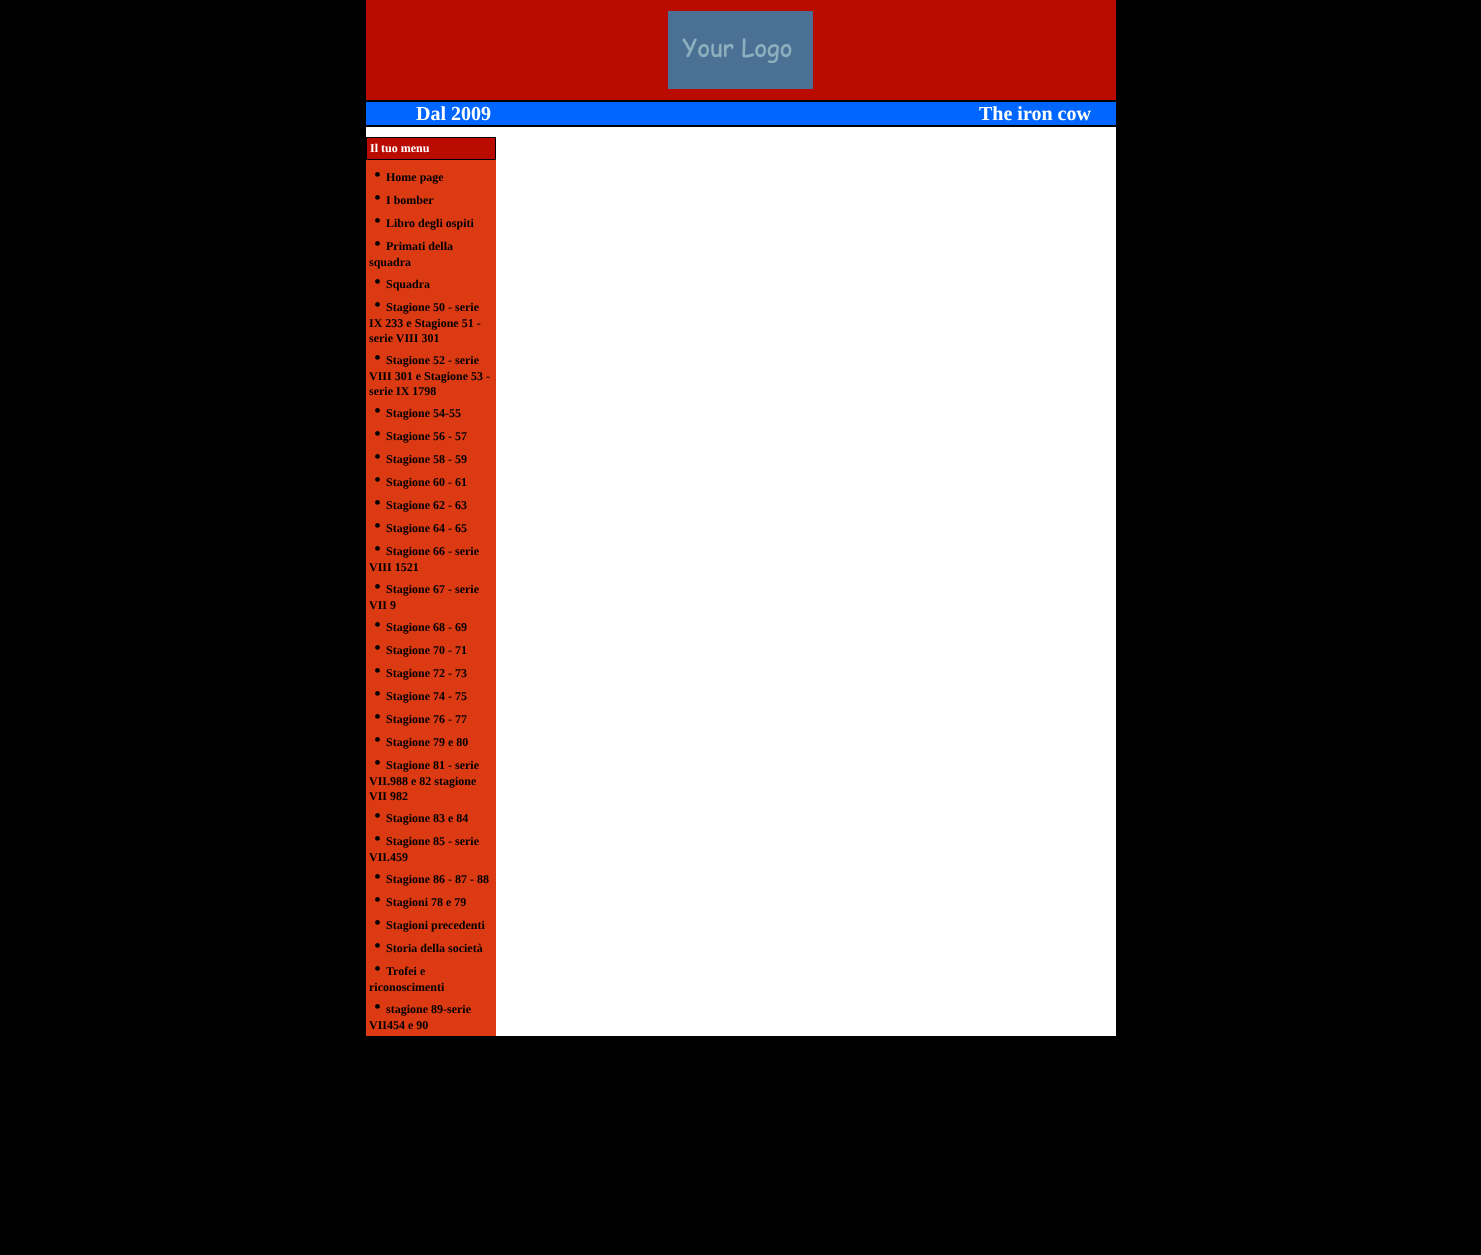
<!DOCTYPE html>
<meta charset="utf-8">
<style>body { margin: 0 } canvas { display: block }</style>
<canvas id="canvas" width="1481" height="1255"></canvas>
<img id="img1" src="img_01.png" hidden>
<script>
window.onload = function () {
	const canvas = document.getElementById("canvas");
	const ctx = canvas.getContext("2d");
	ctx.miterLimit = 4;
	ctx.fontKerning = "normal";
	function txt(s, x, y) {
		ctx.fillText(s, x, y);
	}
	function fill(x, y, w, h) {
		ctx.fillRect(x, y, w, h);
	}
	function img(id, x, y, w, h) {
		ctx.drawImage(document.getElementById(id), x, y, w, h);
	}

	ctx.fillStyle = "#000000";
	fill(0, 0, 1481, 1255);
	ctx.fillStyle = "#FFFFFF";
	fill(366, 127, 750, 909);
	ctx.fillStyle = "#BA0B00";
	fill(366, 0, 750, 100);
	img("img1", 668, 11, 145, 78);
	ctx.fillStyle = "#0066FF";
	fill(366, 102, 750, 23);
	ctx.fillStyle = "#DB3A12";
	fill(366, 160, 130, 876);
	ctx.fillStyle = "#000000";
	fill(366, 137, 130, 23);
	ctx.fillStyle = "#BA0B00";
	fill(367, 138, 128, 21);
	ctx.font = "bold 20px Liberation Serif";
	ctx.fillStyle = "#FFFFFF";
	txt("Dal 2009", 416, 120);
	txt("The iron cow", 979, 120);
	ctx.font = "bold 12px Liberation Serif";
	txt("Il tuo menu", 370, 152);
	ctx.font = "20px Liberation Serif";
	ctx.fillStyle = "#000000";
	txt("•", 374, 181);
	ctx.font = "bold 12px Liberation Serif";
	txt("Home page", 386, 181);
	ctx.font = "20px Liberation Serif";
	txt("•", 374, 204);
	ctx.font = "bold 12px Liberation Serif";
	txt("I bomber", 386, 204);
	ctx.font = "20px Liberation Serif";
	txt("•", 374, 227);
	ctx.font = "bold 12px Liberation Serif";
	txt("Libro degli ospiti", 386, 227);
	ctx.font = "20px Liberation Serif";
	txt("•", 374, 250);
	ctx.font = "bold 12px Liberation Serif";
	txt("Primati della", 386, 250);
	txt("squadra", 369, 266);
	ctx.font = "20px Liberation Serif";
	txt("•", 374, 288);
	ctx.font = "bold 12px Liberation Serif";
	txt("Squadra", 386, 288);
	ctx.font = "20px Liberation Serif";
	txt("•", 374, 311);
	ctx.font = "bold 12px Liberation Serif";
	txt("Stagione 50 - serie", 386, 311);
	txt("IX 233 e Stagione 51 -", 369, 327);
	txt("serie VIII 301", 369, 342);
	ctx.font = "20px Liberation Serif";
	txt("•", 374, 364);
	ctx.font = "bold 12px Liberation Serif";
	txt("Stagione 52 - serie", 386, 364);
	txt("VIII 301 e Stagione 53 -", 369, 380);
	txt("serie IX 1798", 369, 395);
	ctx.font = "20px Liberation Serif";
	txt("•", 374, 417);
	ctx.font = "bold 12px Liberation Serif";
	txt("Stagione 54-55", 386, 417);
	ctx.font = "20px Liberation Serif";
	txt("•", 374, 440);
	ctx.font = "bold 12px Liberation Serif";
	txt("Stagione 56 - 57", 386, 440);
	ctx.font = "20px Liberation Serif";
	txt("•", 374, 463);
	ctx.font = "bold 12px Liberation Serif";
	txt("Stagione 58 - 59", 386, 463);
	ctx.font = "20px Liberation Serif";
	txt("•", 374, 486);
	ctx.font = "bold 12px Liberation Serif";
	txt("Stagione 60 - 61", 386, 486);
	ctx.font = "20px Liberation Serif";
	txt("•", 374, 509);
	ctx.font = "bold 12px Liberation Serif";
	txt("Stagione 62 - 63", 386, 509);
	ctx.font = "20px Liberation Serif";
	txt("•", 374, 532);
	ctx.font = "bold 12px Liberation Serif";
	txt("Stagione 64 - 65", 386, 532);
	ctx.font = "20px Liberation Serif";
	txt("•", 374, 555);
	ctx.font = "bold 12px Liberation Serif";
	txt("Stagione 66 - serie", 386, 555);
	txt("VIII 1521", 369, 571);
	ctx.font = "20px Liberation Serif";
	txt("•", 374, 593);
	ctx.font = "bold 12px Liberation Serif";
	txt("Stagione 67 - serie", 386, 593);
	txt("VII 9", 369, 609);
	ctx.font = "20px Liberation Serif";
	txt("•", 374, 631);
	ctx.font = "bold 12px Liberation Serif";
	txt("Stagione 68 - 69", 386, 631);
	ctx.font = "20px Liberation Serif";
	txt("•", 374, 654);
	ctx.font = "bold 12px Liberation Serif";
	txt("Stagione 70 - 71", 386, 654);
	ctx.font = "20px Liberation Serif";
	txt("•", 374, 677);
	ctx.font = "bold 12px Liberation Serif";
	txt("Stagione 72 - 73", 386, 677);
	ctx.font = "20px Liberation Serif";
	txt("•", 374, 700);
	ctx.font = "bold 12px Liberation Serif";
	txt("Stagione 74 - 75", 386, 700);
	ctx.font = "20px Liberation Serif";
	txt("•", 374, 723);
	ctx.font = "bold 12px Liberation Serif";
	txt("Stagione 76 - 77", 386, 723);
	ctx.font = "20px Liberation Serif";
	txt("•", 374, 746);
	ctx.font = "bold 12px Liberation Serif";
	txt("Stagione 79 e 80", 386, 746);
	ctx.font = "20px Liberation Serif";
	txt("•", 374, 769);
	ctx.font = "bold 12px Liberation Serif";
	txt("Stagione 81 - serie", 386, 769);
	txt("VII.988 e 82 stagione", 369, 785);
	txt("VII 982", 369, 800);
	ctx.font = "20px Liberation Serif";
	txt("•", 374, 822);
	ctx.font = "bold 12px Liberation Serif";
	txt("Stagione 83 e 84", 386, 822);
	ctx.font = "20px Liberation Serif";
	txt("•", 374, 845);
	ctx.font = "bold 12px Liberation Serif";
	txt("Stagione 85 - serie", 386, 845);
	txt("VII.459", 369, 861);
	ctx.font = "20px Liberation Serif";
	txt("•", 374, 883);
	ctx.font = "bold 12px Liberation Serif";
	txt("Stagione 86 - 87 - 88", 386, 883);
	ctx.font = "20px Liberation Serif";
	txt("•", 374, 906);
	ctx.font = "bold 12px Liberation Serif";
	txt("Stagioni 78 e 79", 386, 906);
	ctx.font = "20px Liberation Serif";
	txt("•", 374, 929);
	ctx.font = "bold 12px Liberation Serif";
	txt("Stagioni precedenti", 386, 929);
	ctx.font = "20px Liberation Serif";
	txt("•", 374, 952);
	ctx.font = "bold 12px Liberation Serif";
	txt("Storia della società", 386, 952);
	ctx.font = "20px Liberation Serif";
	txt("•", 374, 975);
	ctx.font = "bold 12px Liberation Serif";
	txt("Trofei e", 386, 975);
	txt("riconoscimenti", 369, 991);
	ctx.font = "20px Liberation Serif";
	txt("•", 374, 1013);
	ctx.font = "bold 12px Liberation Serif";
	txt("stagione 89-serie", 386, 1013);
	txt("VII454 e 90", 369, 1029);
};
</script>
